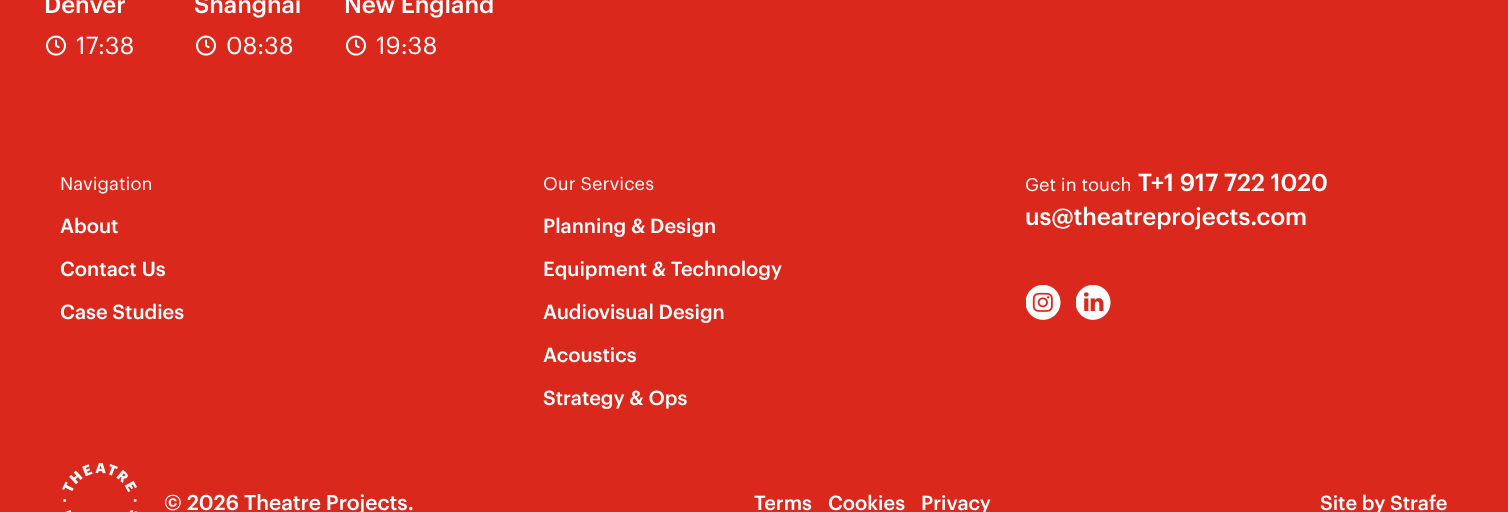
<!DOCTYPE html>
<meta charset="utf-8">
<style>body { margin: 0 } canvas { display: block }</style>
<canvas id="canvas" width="1508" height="512"></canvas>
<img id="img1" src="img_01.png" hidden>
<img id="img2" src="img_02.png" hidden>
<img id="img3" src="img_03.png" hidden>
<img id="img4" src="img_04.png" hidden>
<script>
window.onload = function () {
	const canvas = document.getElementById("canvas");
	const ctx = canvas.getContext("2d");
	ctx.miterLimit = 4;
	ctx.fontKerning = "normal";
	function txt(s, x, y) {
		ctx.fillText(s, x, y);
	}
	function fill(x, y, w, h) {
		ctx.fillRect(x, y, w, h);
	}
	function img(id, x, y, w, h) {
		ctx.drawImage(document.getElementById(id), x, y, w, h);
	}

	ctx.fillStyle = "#DA291C";
	fill(0, 0, 1508, 512);
	img("img1", 46, 35, 20, 21);
	img("img1", 196, 35, 20, 21);
	img("img1", 346, 35, 20, 21);
	img("img2", 1026, 285, 35, 35);
	img("img3", 1076, 285, 35, 35);
	img("img4", 62, 463, 76, 49);
	ctx.font = "500 24px Graphik";
	ctx.fillStyle = "#FFFFFF";
	txt("Denver", 44, 13);
	ctx.font = "24px Graphik";
	txt("17:38", 76, 54);
	ctx.font = "500 24px Graphik";
	txt("Shanghai", 194, 13);
	ctx.font = "24px Graphik";
	txt("08:38", 226, 54);
	ctx.font = "500 24px Graphik";
	txt("New England", 344, 13);
	ctx.font = "24px Graphik";
	txt("19:38", 376, 54);
	ctx.font = "18px Graphik";
	txt("Navigation", 60, 190);
	ctx.font = "500 20px Graphik";
	txt("About", 60, 233);
	txt("Contact Us", 60, 276);
	txt("Case Studies", 60, 319);
	ctx.font = "18px Graphik";
	txt("Our Services", 543, 190);
	ctx.font = "500 20px Graphik";
	txt("Planning & Design", 543, 233);
	txt("Equipment & Technology", 543, 276);
	txt("Audiovisual Design", 543, 319);
	txt("Acoustics", 543, 362);
	txt("Strategy & Ops", 543, 405);
	ctx.font = "18px Graphik";
	txt("Get in touch", 1025, 191);
	ctx.font = "500 24px Graphik";
	txt("T+1 917 722 1020", 1138, 191);
	txt("us@theatreprojects.com", 1025, 225);
	ctx.font = "500 21px Graphik";
	txt("© 2026 Theatre Projects.", 164, 510);
	ctx.font = "500 20px Graphik";
	txt("Terms", 754, 510);
	txt("Cookies", 828, 510);
	txt("Privacy", 921, 510);
	txt("Site by Strafe", 1320, 510);
};
</script>
